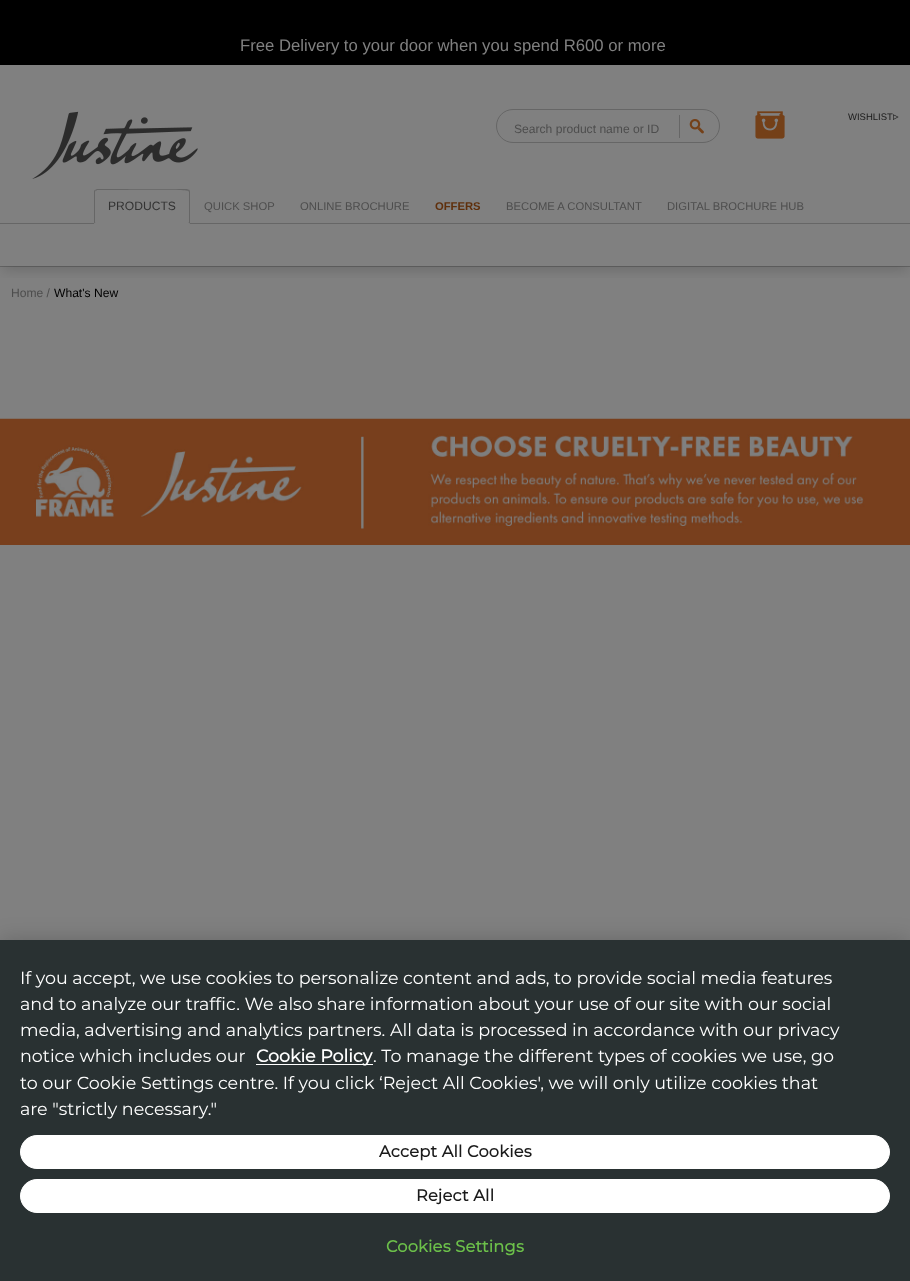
<!DOCTYPE html>
<meta charset="utf-8">
<style>body { margin: 0 } canvas { display: block }</style>
<canvas id="canvas" width="910" height="1281"></canvas>
<img id="img1" src="img_01.png" hidden>
<img id="img2" src="img_02.png" hidden>
<img id="img3" src="img_03.png" hidden>
<img id="img4" src="img_04.png" hidden>
<script>
window.onload = function () {
	const canvas = document.getElementById("canvas");
	const ctx = canvas.getContext("2d");
	ctx.miterLimit = 4;
	ctx.fontKerning = "normal";
	function txt(s, x, y) {
		ctx.fillText(s, x, y);
	}
	function fill(x, y, w, h) {
		ctx.fillRect(x, y, w, h);
	}
	function img(id, x, y, w, h) {
		ctx.drawImage(document.getElementById(id), x, y, w, h);
	}

	ctx.fillStyle = "#808080";
	fill(0, 0, 910, 1281);
	ctx.fillStyle = "#000000";
	fill(0, 0, 910, 65);
	ctx.fillStyle = "#666666";
	fill(0, 266, 910, 1);
	img("img1", 32, 111, 166, 68);
	img("img2", 755, 111, 30, 28);
	ctx.beginPath();
	ctx.roundRect(496.5, 109.5, 223, 33, 16.5);
	ctx.strokeStyle = "#666666";
	ctx.stroke();
	fill(679, 115, 1, 23);
	img("img3", 689, 119, 15, 15);
	fill(0, 223, 910, 1);
	ctx.fillStyle = "#808080";
	ctx.beginPath();
	ctx.roundRect(94, 189, 96, 35, [2.5, 2.5, 0, 0]);
	ctx.fill();
	ctx.fillStyle = "#666666";
	ctx.beginPath();
	ctx.moveTo(97, 189);
	ctx.lineTo(95, 190);
	ctx.lineTo(96, 191);
	ctx.lineTo(97, 190);
	ctx.lineTo(112, 190);
	ctx.bezierCurveTo(120, 190, 187, 189, 188, 191);
	ctx.lineTo(189, 190);
	ctx.lineTo(187, 189);
	ctx.closePath();
	ctx.fill();
	ctx.beginPath();
	ctx.moveTo(189, 189.5);
	ctx.bezierCurveTo(189.5, 190, 190, 191, 190, 192);
	ctx.lineTo(190, 224);
	ctx.lineTo(188, 222);
	ctx.lineTo(189, 222);
	ctx.lineTo(189, 192);
	ctx.lineTo(188, 190.5);
	ctx.closePath();
	ctx.fill();
	ctx.fillStyle = "#808080";
	ctx.beginPath();
	ctx.moveTo(190, 224);
	ctx.lineTo(94, 224);
	ctx.lineTo(96, 222);
	ctx.lineTo(188, 222);
	ctx.closePath();
	ctx.fill();
	ctx.fillStyle = "#666666";
	ctx.beginPath();
	ctx.moveTo(95, 190);
	ctx.bezierCurveTo(94, 190, 94, 191, 94, 192);
	ctx.lineTo(94, 223.5);
	ctx.lineTo(95.5, 222);
	ctx.lineTo(95, 222);
	ctx.lineTo(95, 192);
	ctx.lineTo(95.5, 190.5);
	ctx.closePath();
	ctx.fill();
	ctx.save();
	ctx.beginPath();
	ctx.rect(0, 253, 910, 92);
	ctx.clip();
	ctx.beginPath();
	ctx.rect(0, 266, 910, 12);
	ctx.clip();
	ctx.fillStyle = "rgba(0, 0, 0, 0.25)";
	ctx.filter = "blur(7px)";
	ctx.beginPath();
	ctx.rect(3, 260, 905, 8);
	ctx.fill();
	ctx.filter = "none";
	ctx.restore();
	img("img4", 0, 418, 910, 127);
	ctx.fillStyle = "rgba(0, 0, 0, 0.2)";
	ctx.filter = "blur(11px)";
	ctx.beginPath();
	ctx.rect(0, 940, 910, 341);
	ctx.fill();
	ctx.filter = "none";
	ctx.fillStyle = "#293132";
	fill(0, 940, 910, 341);
	ctx.fillStyle = "#FFFFFF";
	fill(256, 1064, 117, 1);
	ctx.beginPath();
	ctx.roundRect(20.5, 1135.5, 869, 33, 16.5);
	ctx.fill();
	ctx.strokeStyle = "#FFFFFF";
	ctx.stroke();
	ctx.beginPath();
	ctx.roundRect(20.5, 1179.5, 869, 33, 16.5);
	ctx.fill();
	ctx.stroke();
	ctx.font = "16.7px Liberation Sans";
	ctx.fillStyle = "#808080";
	txt("Free Delivery to your door when you spend R600 or more", 240, 51);
	ctx.font = "9.5px Liberation Sans";
	ctx.fillStyle = "#1A1A1A";
	txt("WISHLIST", 848, 120);
	ctx.font = "11.25px DejaVu Sans";
	txt("▹", 893, 120);
	ctx.font = "12.1px Liberation Sans";
	ctx.fillStyle = "#4D4D4D";
	txt("Search product name or ID", 514, 133);
	ctx.fillStyle = "#333333";
	txt("PRODUCTS", 108, 210);
	ctx.font = "11.25px Liberation Sans";
	ctx.fillStyle = "#4D4D4D";
	txt("QUICK SHOP", 204, 210);
	txt("ONLINE BROCHURE", 300, 210);
	ctx.font = "bold 11.25px Liberation Sans";
	ctx.fillStyle = "#5F2F0B";
	txt("OFFERS", 435, 210);
	ctx.font = "11.25px Liberation Sans";
	ctx.fillStyle = "#4D4D4D";
	txt("BECOME A CONSULTANT", 506, 210);
	txt("DIGITAL BROCHURE HUB", 667, 210);
	ctx.font = "12.1px Liberation Sans";
	txt("Home /", 11, 297);
	ctx.fillStyle = "#000000";
	txt("What's New", 54, 297);
	ctx.font = "100 17.5px Montserrat";
	ctx.fillStyle = "#FFFFFF";
	txt("If you accept, we use cookies to personalize content and ads, to provide social media features", 20, 984);
	txt("and to analyze our traffic. We also share information about your use of our site with our social", 20, 1010);
	txt("media, advertising and analytics partners. All data is processed in accordance with our privacy", 20, 1036);
	txt("notice which includes our", 20, 1062);
	ctx.font = "bold 17.5px Montserrat";
	txt("Cookie Policy", 256, 1062);
	ctx.font = "100 17.5px Montserrat";
	txt(". To manage the different types of cookies we use, go", 373, 1062);
	txt("to our Cookie Settings centre. If you click ‘Reject All Cookies', we will only utilize cookies that", 20, 1089);
	txt("are \"strictly necessary.\"", 20, 1115);
	ctx.letterSpacing = "0.2px";
	ctx.font = "bold 16.25px Montserrat";
	ctx.fillStyle = "#1A1A1A";
	txt("Accept All Cookies", 379, 1157);
	txt("Reject All", 416, 1201);
	ctx.fillStyle = "#6CC04A";
	txt("Cookies Settings", 386, 1252);
};
</script>
